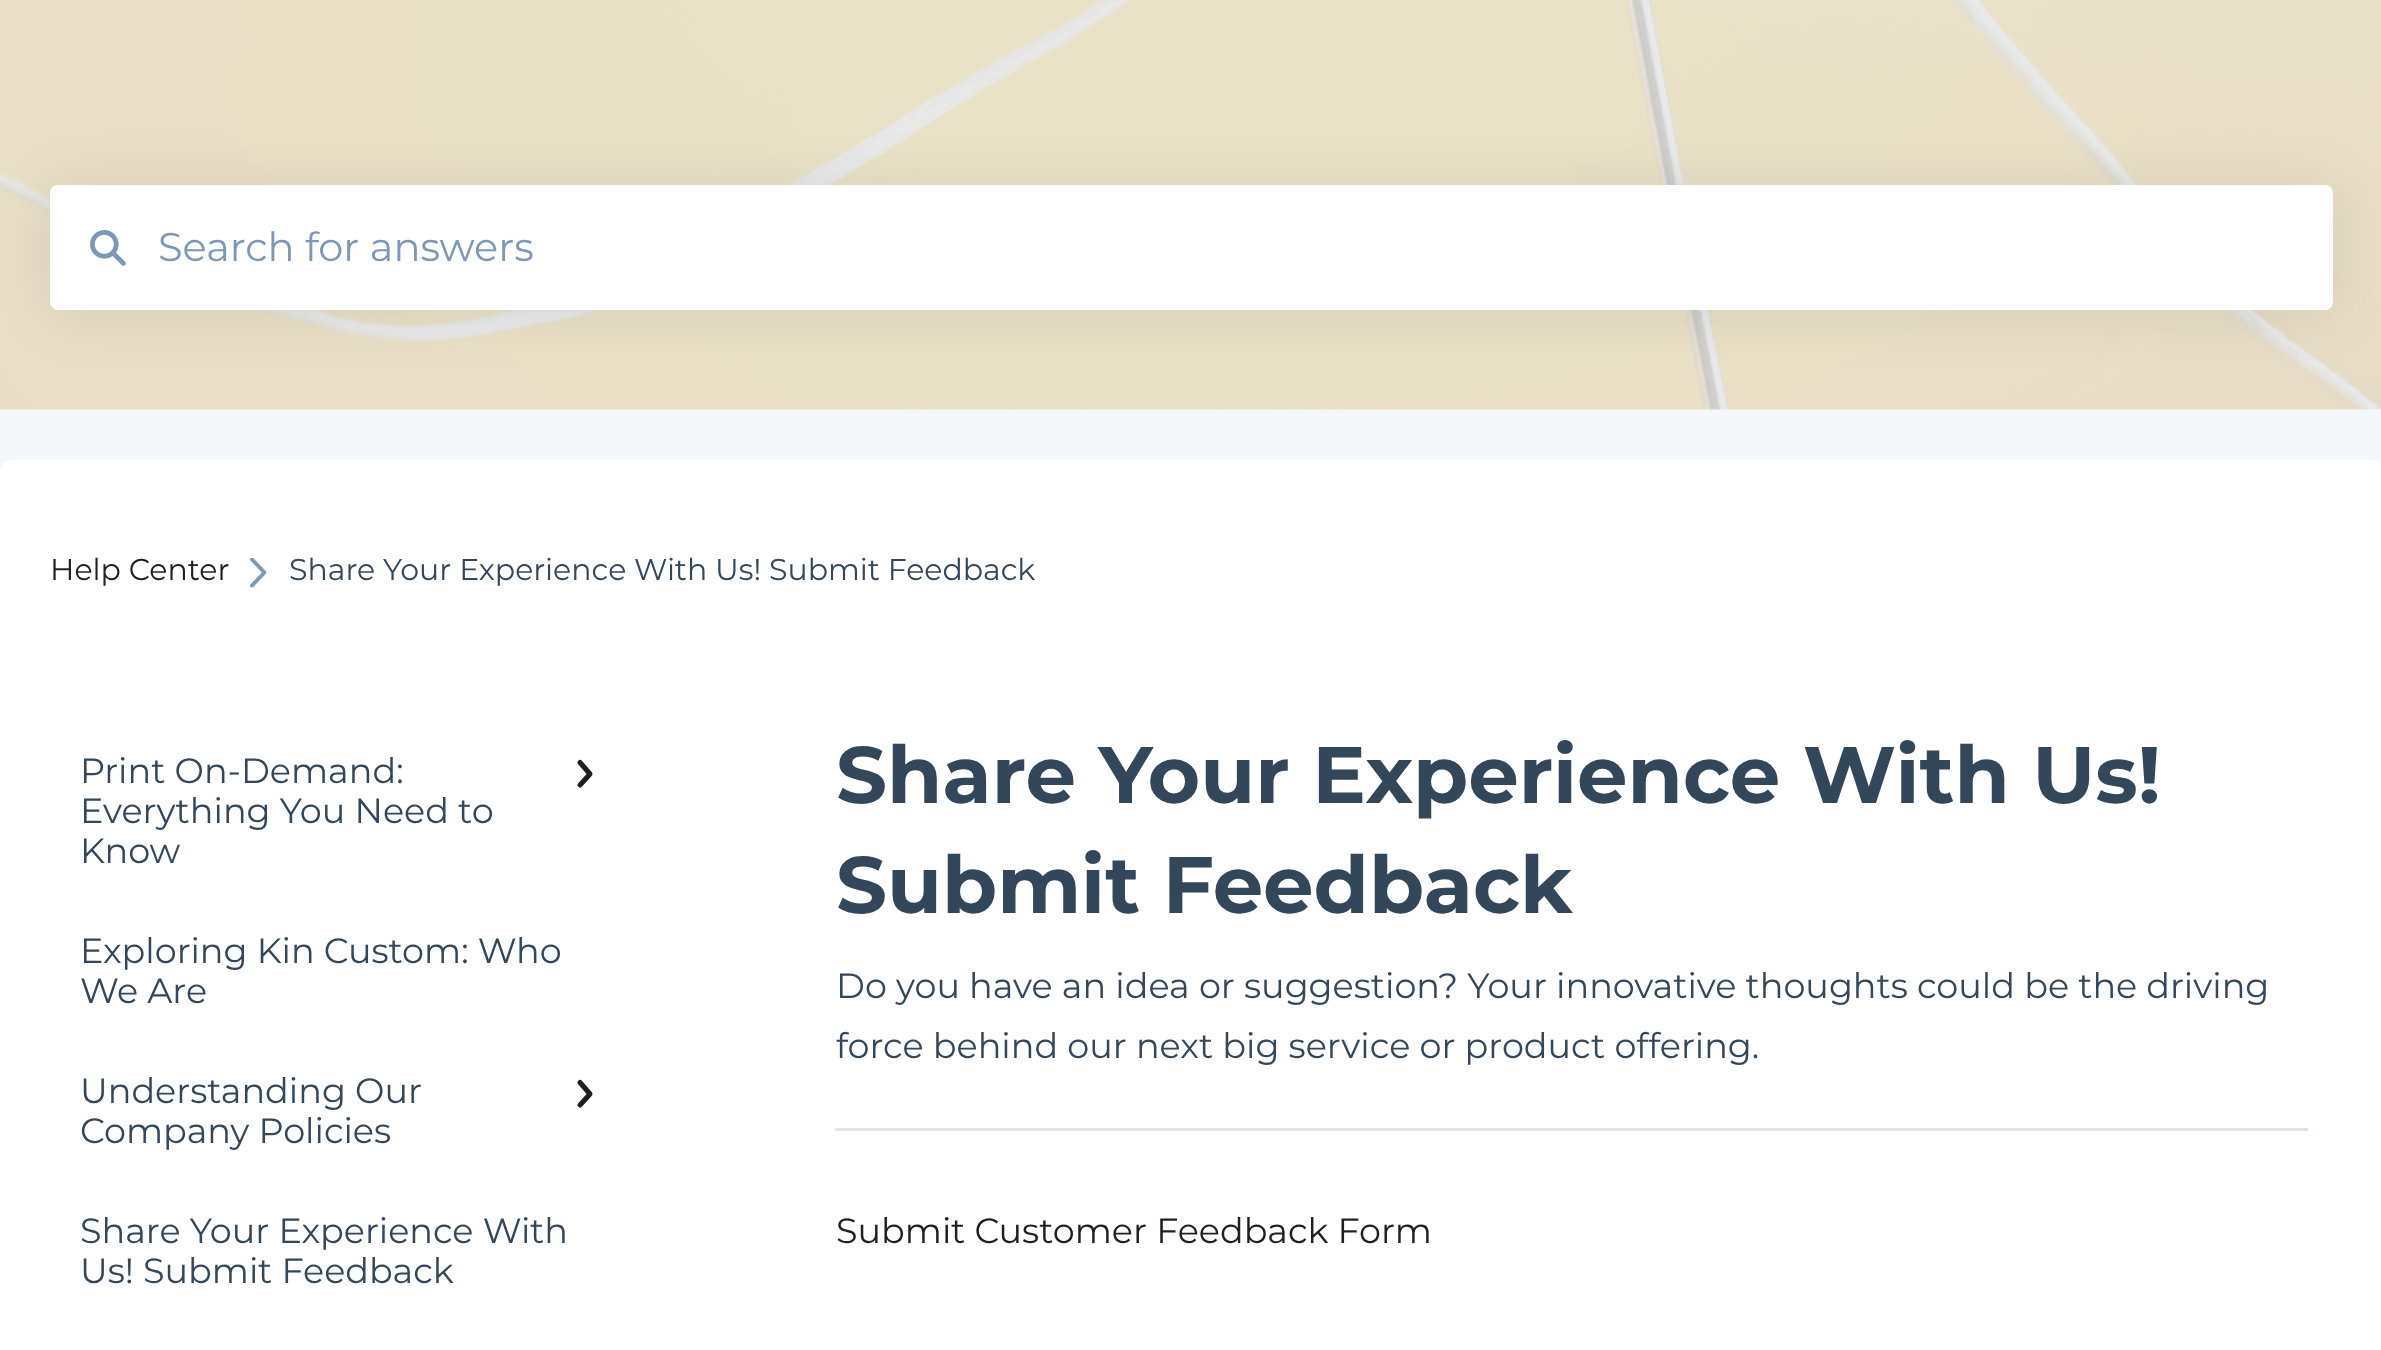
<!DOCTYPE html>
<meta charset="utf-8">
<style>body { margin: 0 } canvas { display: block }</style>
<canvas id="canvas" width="2381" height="1350"></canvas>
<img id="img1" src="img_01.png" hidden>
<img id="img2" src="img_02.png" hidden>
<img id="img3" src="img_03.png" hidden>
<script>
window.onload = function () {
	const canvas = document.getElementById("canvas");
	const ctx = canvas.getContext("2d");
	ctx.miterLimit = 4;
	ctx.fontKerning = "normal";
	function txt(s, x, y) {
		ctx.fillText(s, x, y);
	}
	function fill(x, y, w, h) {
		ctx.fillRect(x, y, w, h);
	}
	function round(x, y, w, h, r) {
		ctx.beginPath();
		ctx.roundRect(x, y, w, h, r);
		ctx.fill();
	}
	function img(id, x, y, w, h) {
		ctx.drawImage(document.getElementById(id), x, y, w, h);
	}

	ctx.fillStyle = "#F5F8FA";
	fill(0, 0, 2381, 1350);
	ctx.fillStyle = "#FFFFFF";
	fill(0, 409, 2381, 1);
	img("img1", 0, 0, 2381, 410);
	ctx.fillStyle = "rgba(0, 0, 0, 0.08)";
	ctx.filter = "blur(30px)";
	ctx.beginPath();
	ctx.roundRect(50, 188, 2283, 125, 8);
	ctx.fill();
	ctx.filter = "none";
	ctx.fillStyle = "#FFFFFF";
	round(50, 185, 2283, 125, 8);
	img("img2", 90, 230, 36, 36);
	round(0, 460, 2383, 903, 13);
	img("img3", 250, 558, 17, 30);
	ctx.beginPath();
	ctx.moveTo(580, 762.5);
	ctx.lineTo(590, 774);
	ctx.lineTo(580, 785);
	ctx.strokeStyle = "#221E1F";
	ctx.lineWidth = 5;
	ctx.lineCap = "round";
	ctx.lineJoin = "round";
	ctx.stroke();
	ctx.beginPath();
	ctx.moveTo(580, 1082.5);
	ctx.lineTo(590, 1094);
	ctx.lineTo(580, 1105);
	ctx.stroke();
	ctx.fillStyle = "#DFE3EB";
	fill(835, 1128, 1473, 3);
	ctx.font = "40px Montserrat";
	ctx.fillStyle = "#7C98B6";
	txt("Search for answers", 158, 261);
	ctx.font = "30px Montserrat";
	ctx.fillStyle = "#221E1F";
	txt("Help Center", 50, 580);
	ctx.fillStyle = "#33475B";
	txt("Share Your Experience With Us! Submit Feedback", 289, 580);
	ctx.font = "35px Montserrat";
	txt("Print On-Demand:", 80, 783);
	txt("Everything You Need to", 80, 823);
	txt("Know", 80, 863);
	txt("Exploring Kin Custom: Who", 80, 963);
	txt("We Are", 80, 1003);
	txt("Understanding Our", 80, 1103);
	txt("Company Policies", 80, 1143);
	txt("Share Your Experience With", 80, 1243);
	txt("Us! Submit Feedback", 80, 1283);
	ctx.font = "bold 80px Montserrat";
	txt("Share Your Experience With Us!", 836, 803);
	txt("Submit Feedback", 836, 913);
	ctx.font = "35px Montserrat";
	txt("Do you have an idea or suggestion? Your innovative thoughts could be the driving", 836, 998);
	txt("force behind our next big service or product offering.", 836, 1058);
	ctx.fillStyle = "#221E1F";
	txt("Submit Customer Feedback Form", 836, 1243);
};
</script>
